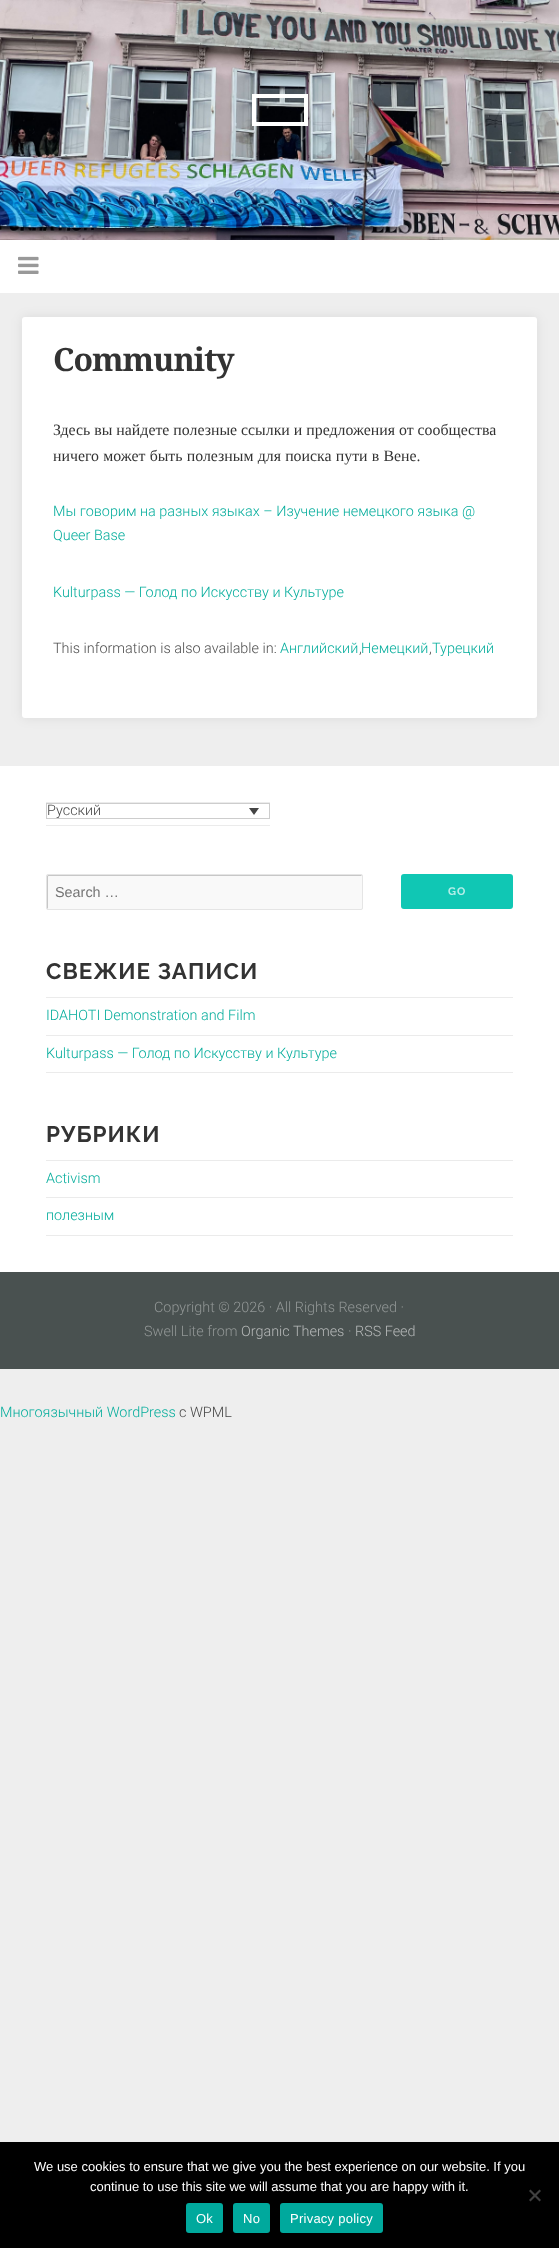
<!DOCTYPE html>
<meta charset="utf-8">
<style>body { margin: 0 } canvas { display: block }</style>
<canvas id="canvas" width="559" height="2248"></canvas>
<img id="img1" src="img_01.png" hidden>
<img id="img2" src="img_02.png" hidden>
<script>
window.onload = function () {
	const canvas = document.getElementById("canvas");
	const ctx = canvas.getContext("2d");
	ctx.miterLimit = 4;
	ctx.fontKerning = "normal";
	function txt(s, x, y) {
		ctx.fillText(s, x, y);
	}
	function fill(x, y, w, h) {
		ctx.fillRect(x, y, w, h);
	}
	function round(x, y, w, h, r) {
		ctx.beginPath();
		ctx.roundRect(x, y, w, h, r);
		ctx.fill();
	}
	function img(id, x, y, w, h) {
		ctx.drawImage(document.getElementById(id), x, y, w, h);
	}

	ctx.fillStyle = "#EEEEEE";
	fill(0, 0, 559, 2248);
	img("img1", 0, 0, 559, 240);
	ctx.strokeStyle = "#FFFFFF";
	ctx.lineWidth = 4;
	ctx.strokeRect(254, 96, 52, 28);
	ctx.fillStyle = "#FFFFFF";
	fill(0, 240, 559, 53);
	img("img2", 18, 256, 21, 18);
	ctx.fillStyle = "rgba(0, 0, 0, 0.08)";
	ctx.filter = "blur(6px)";
	ctx.beginPath();
	ctx.roundRect(22, 317, 515, 401, 3);
	ctx.fill();
	ctx.filter = "none";
	ctx.fillStyle = "#FFFFFF";
	round(22, 317, 515, 401, 3);
	fill(0, 766, 559, 506);
	ctx.fillStyle = "#EBEBEB";
	fill(46, 802, 224, 1);
	fill(46, 825, 224, 1);
	ctx.strokeStyle = "#CDCDCD";
	ctx.lineWidth = 1;
	ctx.strokeRect(46.5, 803.5, 223, 15);
	ctx.fillStyle = "#444444";
	ctx.beginPath();
	ctx.moveTo(249, 808);
	ctx.lineTo(259, 808);
	ctx.lineTo(254, 815);
	ctx.closePath();
	ctx.fill();
	ctx.fillStyle = "#F9F9F9";
	round(46, 874, 317, 36, 2);
	ctx.fillStyle = "#C7C7C7";
	ctx.beginPath();
	ctx.moveTo(49, 876);
	ctx.lineTo(362, 876);
	ctx.lineTo(361, 875);
	ctx.lineTo(48, 875);
	ctx.lineTo(47, 876);
	ctx.lineTo(47, 908);
	ctx.lineTo(48, 909);
	ctx.lineTo(48, 877);
	ctx.bezierCurveTo(48, 876, 48, 876, 49, 876);
	ctx.closePath();
	ctx.fill();
	ctx.beginPath();
	ctx.roundRect(46.5, 874.5, 316, 35, 1.5);
	ctx.strokeStyle = "#E5E5E5";
	ctx.stroke();
	ctx.fillStyle = "#10C7B4";
	round(401, 874, 112, 35, 3);
	ctx.fillStyle = "#EBEBEB";
	fill(46, 997, 467, 1);
	fill(46, 1035, 467, 1);
	fill(46, 1072, 467, 1);
	fill(46, 1160, 467, 1);
	fill(46, 1197, 467, 1);
	fill(46, 1235, 467, 1);
	ctx.fillStyle = "#495150";
	fill(0, 1272, 559, 97);
	ctx.fillStyle = "#000000";
	fill(0, 2142, 559, 106);
	ctx.fillStyle = "#404040";
	ctx.beginPath();
	ctx.moveTo(539.5, 2189.5);
	ctx.lineTo(541, 2191);
	ctx.lineTo(530.5, 2201.5);
	ctx.lineTo(529, 2200);
	ctx.closePath();
	ctx.fill();
	ctx.beginPath();
	ctx.moveTo(529, 2191);
	ctx.lineTo(530.5, 2189.5);
	ctx.lineTo(541, 2200);
	ctx.lineTo(539.5, 2201.5);
	ctx.closePath();
	ctx.fill();
	ctx.fillStyle = "#00A99D";
	round(186, 2203, 37, 30, 3);
	round(233, 2203, 37, 30, 3);
	round(280, 2203, 103, 30, 3);
	ctx.letterSpacing = "-1px";
	ctx.font = "bold 32px Droid Serif";
	ctx.fillStyle = "#333333";
	txt("Community", 53, 371);
	ctx.letterSpacing = "0px";
	ctx.font = "15.85px Liberation Serif";
	txt("Здесь вы найдете полезные ссылки и предложения от сообщества", 53, 435);
	ctx.wordSpacing = "0.25px";
	txt("ничего может быть полезным для поиска пути в Вене.", 53, 461);
	ctx.wordSpacing = "0px";
	ctx.font = "300 14.4px Roboto";
	ctx.fillStyle = "#05AD9C";
	txt("Мы говорим на разных языках – Изучение немецкого языка @", 53, 516);
	txt("Queer Base", 53, 540);
	txt("Kulturpass — Голод по Искусству и Культуре", 53, 597);
	ctx.fillStyle = "#4D4D4D";
	txt("This information is also available in:", 53, 653);
	ctx.fillStyle = "#05AD9C";
	txt("Английский", 280, 653);
	ctx.fillStyle = "#4D4D4D";
	txt(",", 359, 653);
	ctx.fillStyle = "#05AD9C";
	txt("Немецкий", 361, 653);
	ctx.fillStyle = "#4D4D4D";
	txt(",", 429, 653);
	ctx.fillStyle = "#05AD9C";
	txt("Турецкий", 432, 653);
	ctx.fillStyle = "#474747";
	txt("Русский", 47, 815);
	ctx.font = "14.4px Liberation Sans";
	ctx.fillStyle = "#757575";
	txt("Search …", 55, 897);
	ctx.letterSpacing = "1px";
	ctx.font = "bold 11px Raleway";
	ctx.fillStyle = "#B7EEE9";
	txt("GO", 448, 895);
	ctx.font = "bold 22.5px Raleway";
	ctx.fillStyle = "#333333";
	txt("СВЕЖИЕ ЗАПИСИ", 46, 979);
	ctx.letterSpacing = "0px";
	ctx.font = "300 14.4px Roboto";
	ctx.fillStyle = "#05AD9C";
	txt("IDAHOTI Demonstration and Film", 46, 1020);
	txt("Kulturpass — Голод по Искусству и Культуре", 46, 1058);
	ctx.letterSpacing = "1px";
	ctx.font = "bold 22.5px Raleway";
	ctx.fillStyle = "#333333";
	txt("РУБРИКИ", 46, 1142);
	ctx.letterSpacing = "0px";
	ctx.font = "300 14.4px Roboto";
	ctx.fillStyle = "#05AD9C";
	txt("Activism", 46, 1183);
	txt("полезным", 46, 1220);
	ctx.fillStyle = "#929796";
	txt("Copyright © 2026 · All Rights Reserved ·", 154, 1312);
	txt("Swell Lite from", 144, 1336);
	ctx.fillStyle = "#B6B9B9";
	txt("Organic Themes", 241, 1336);
	ctx.fillStyle = "#929796";
	txt("·", 348, 1336);
	ctx.fillStyle = "#B6B9B9";
	txt("RSS Feed", 355, 1336);
	ctx.fillStyle = "#05AD9C";
	txt("Многоязычный WordPress", 0, 1417);
	ctx.fillStyle = "#474747";
	txt("с WPML", 179, 1417);
	ctx.font = "13px Liberation Sans";
	ctx.fillStyle = "#FFFFFF";
	txt("We use cookies to ensure that we give you the best experience on our website. If you", 34, 2171);
	txt("continue to use this site we will assume that you are happy with it.", 90, 2191);
	ctx.letterSpacing = "0.25px";
	txt("Ok", 196, 2223);
	txt("No", 243, 2223);
	txt("Privacy policy", 290, 2223);
};
</script>
